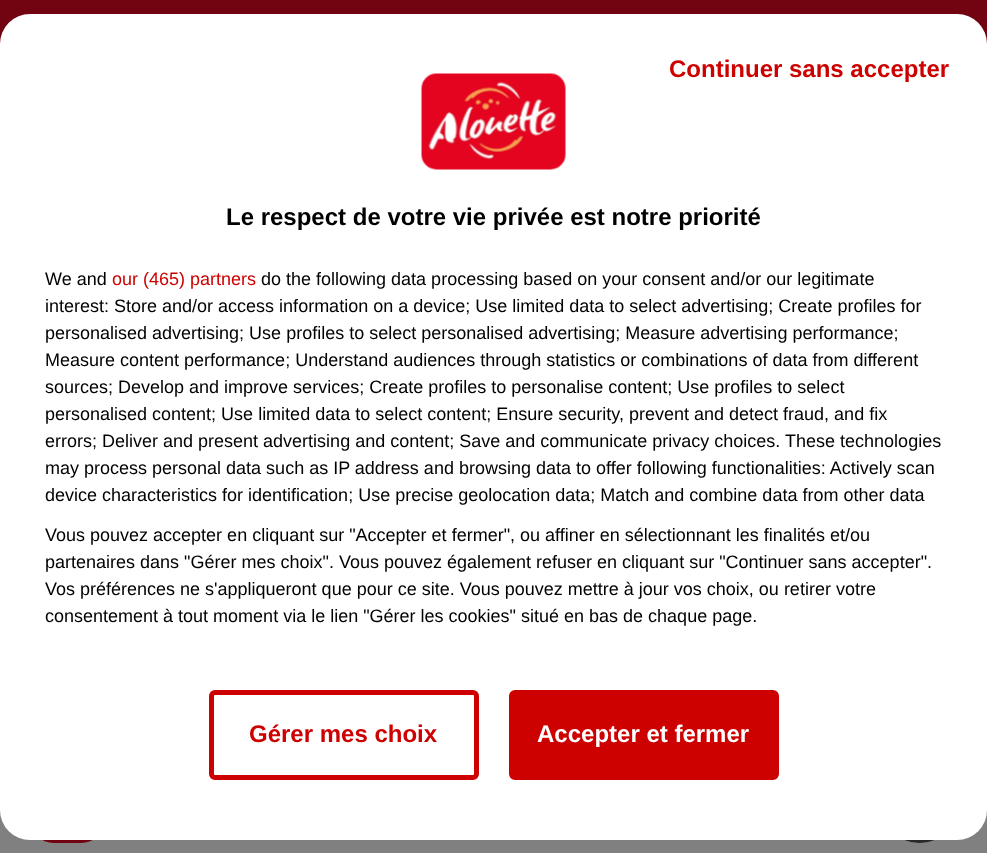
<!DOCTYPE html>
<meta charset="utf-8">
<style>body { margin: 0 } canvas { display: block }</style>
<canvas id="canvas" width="987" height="853"></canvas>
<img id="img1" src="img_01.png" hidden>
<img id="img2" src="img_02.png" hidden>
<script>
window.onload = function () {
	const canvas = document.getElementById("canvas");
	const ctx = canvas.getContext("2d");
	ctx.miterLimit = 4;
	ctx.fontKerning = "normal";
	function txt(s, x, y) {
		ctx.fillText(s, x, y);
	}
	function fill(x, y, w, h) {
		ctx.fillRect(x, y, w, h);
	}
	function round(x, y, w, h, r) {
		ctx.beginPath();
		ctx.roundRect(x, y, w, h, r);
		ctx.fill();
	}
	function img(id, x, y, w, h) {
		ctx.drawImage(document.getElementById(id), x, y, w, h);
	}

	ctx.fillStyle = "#720311";
	fill(0, 0, 987, 853);
	ctx.fillStyle = "#808080";
	fill(0, 810, 987, 43);
	ctx.fillStyle = "#272727";
	ctx.beginPath();
	ctx.arc(919.5, 805.5, 37.5, 0, Math.PI * 2);
	ctx.fill();
	ctx.fillStyle = "#FFFFFF";
	round(0, 14, 987, 826, 30);
	ctx.beginPath();
	ctx.roundRect(211.5, 692.5, 265, 85, 3.5);
	ctx.strokeStyle = "#CD0100";
	ctx.lineWidth = 5;
	ctx.stroke();
	ctx.fillStyle = "#CD0100";
	ctx.beginPath();
	ctx.roundRect(511.5, 692.5, 265, 85, 3.5);
	ctx.fill();
	ctx.stroke();
	img("img1", 421, 73, 145, 97);
	img("img2", 42, 840, 51, 3);
	ctx.font = "bold 24px Liberation Sans";
	txt("Continuer sans accepter", 669, 77);
	txt("Gérer mes choix", 249, 742);
	ctx.fillStyle = "#FFFFFF";
	txt("Accepter et fermer", 537, 742);
	ctx.fillStyle = "#000000";
	txt("Le respect de votre vie privée est notre priorité", 226, 225);
	ctx.font = "18px Liberation Sans";
	txt("We and", 45, 285);
	ctx.fillStyle = "#CD0100";
	txt("our (465) partners", 112, 285);
	ctx.fillStyle = "#000000";
	txt("do the following data processing based on your consent and/or our legitimate", 261, 285);
	txt("interest: Store and/or access information on a device; Use limited data to select advertising; Create profiles for", 45, 312);
	txt("personalised advertising; Use profiles to select personalised advertising; Measure advertising performance;", 45, 339);
	txt("Measure content performance; Understand audiences through statistics or combinations of data from different", 45, 366);
	txt("sources; Develop and improve services; Create profiles to personalise content; Use profiles to select", 45, 393);
	txt("personalised content; Use limited data to select content; Ensure security, prevent and detect fraud, and fix", 45, 420);
	txt("errors; Deliver and present advertising and content; Save and communicate privacy choices. These technologies", 45, 447);
	txt("may process personal data such as IP address and browsing data to offer following functionalities: Actively scan", 45, 474);
	txt("device characteristics for identification; Use precise geolocation data; Match and combine data from other data", 45, 501);
	txt("Vous pouvez accepter en cliquant sur \"Accepter et fermer\", ou affiner en sélectionnant les finalités et/ou", 45, 541);
	txt("partenaires dans \"Gérer mes choix\". Vous pouvez également refuser en cliquant sur \"Continuer sans accepter\".", 45, 568);
	txt("Vos préférences ne s'appliqueront que pour ce site. Vous pouvez mettre à jour vos choix, ou retirer votre", 45, 595);
	txt("consentement à tout moment via le lien \"Gérer les cookies\" situé en bas de chaque page.", 45, 622);
};
</script>
